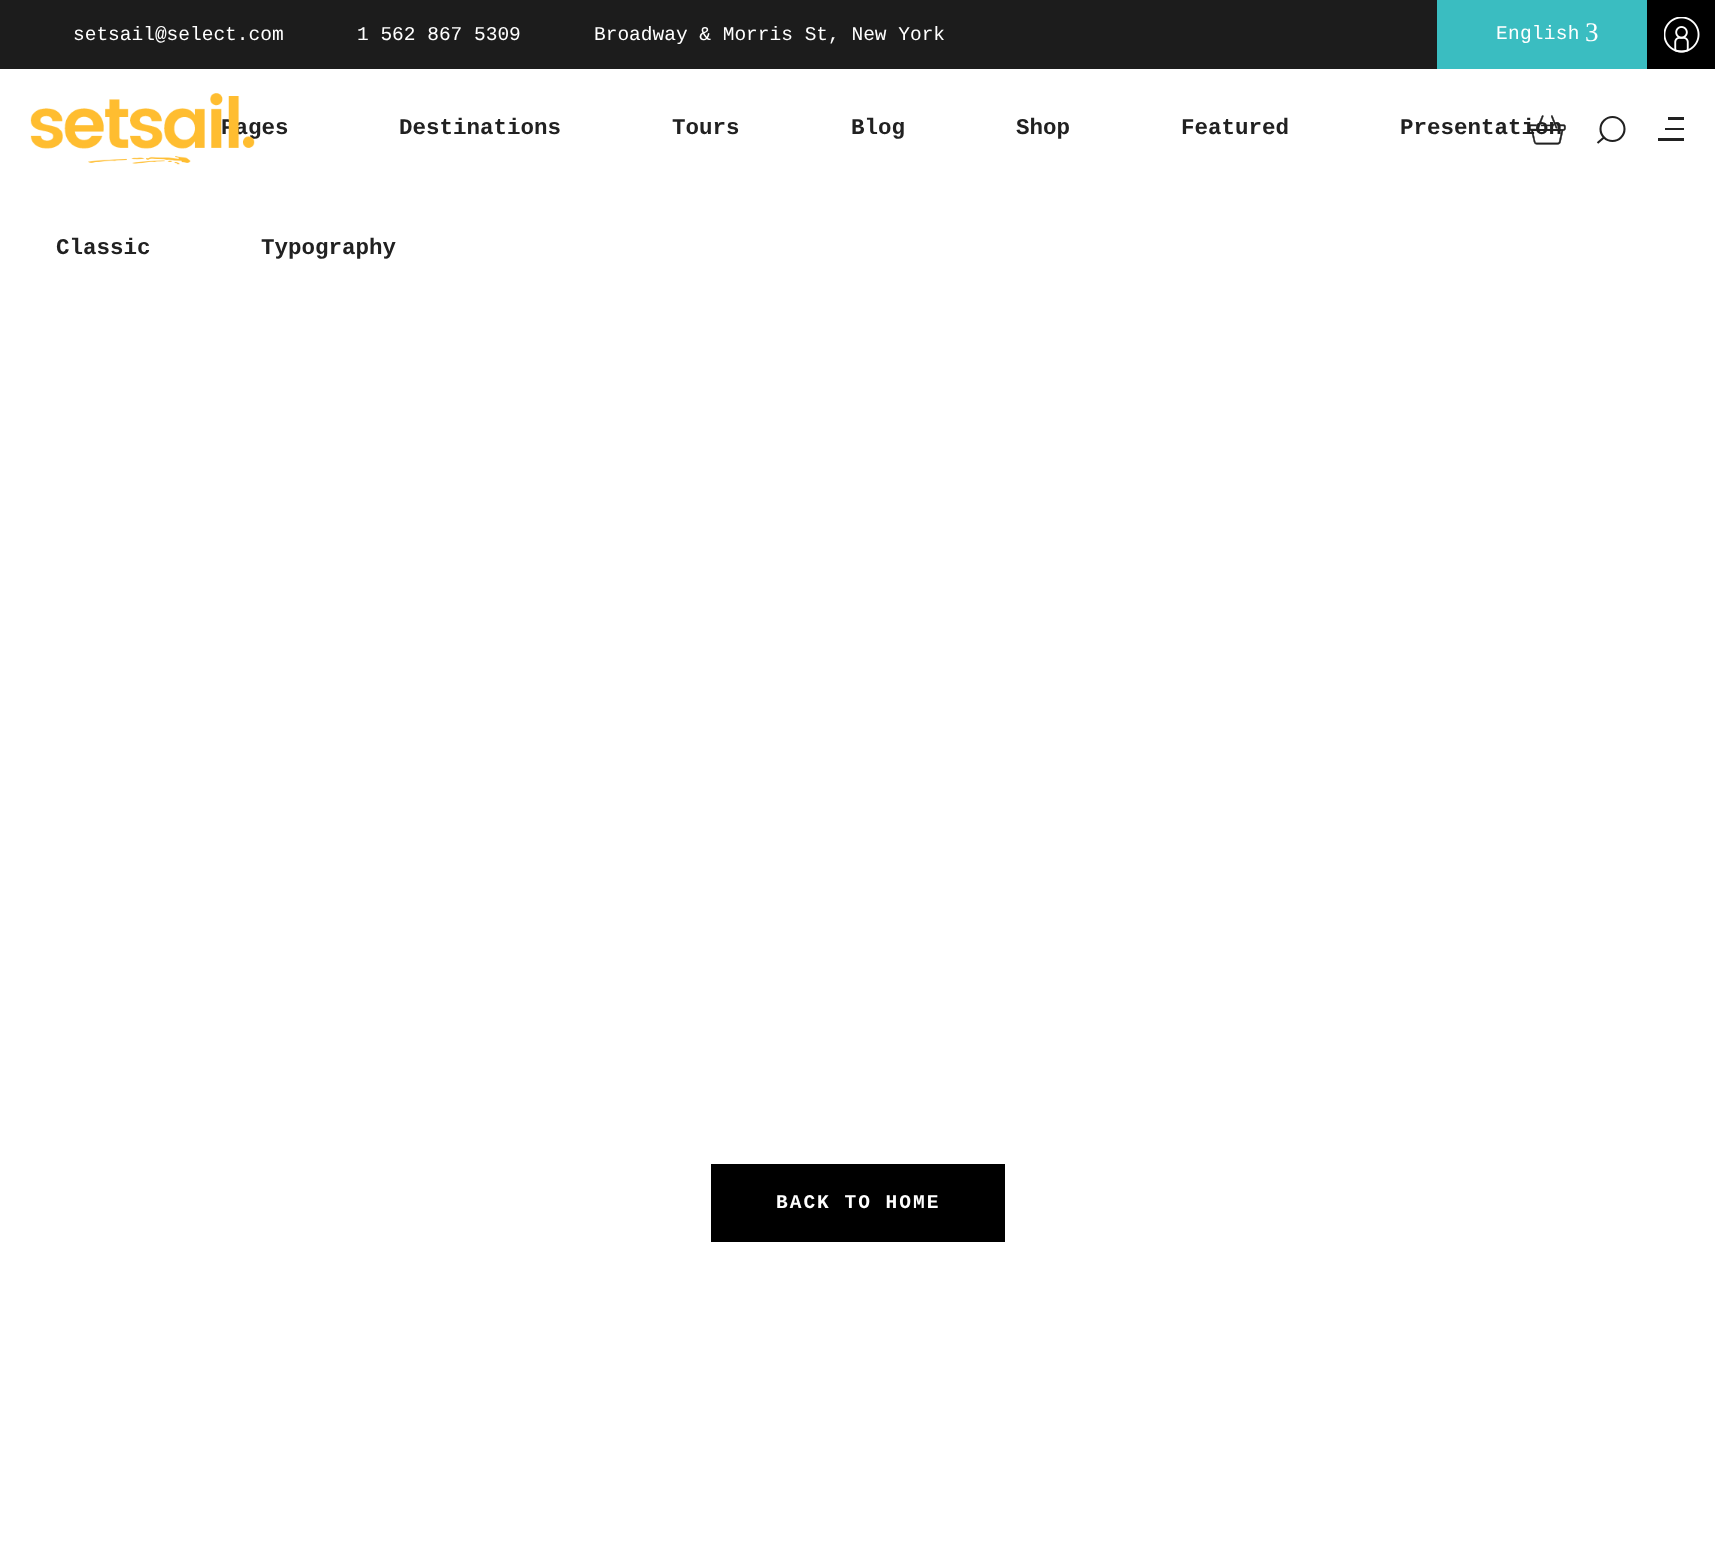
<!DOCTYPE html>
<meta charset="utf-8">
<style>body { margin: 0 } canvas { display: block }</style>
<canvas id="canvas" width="1715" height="1548"></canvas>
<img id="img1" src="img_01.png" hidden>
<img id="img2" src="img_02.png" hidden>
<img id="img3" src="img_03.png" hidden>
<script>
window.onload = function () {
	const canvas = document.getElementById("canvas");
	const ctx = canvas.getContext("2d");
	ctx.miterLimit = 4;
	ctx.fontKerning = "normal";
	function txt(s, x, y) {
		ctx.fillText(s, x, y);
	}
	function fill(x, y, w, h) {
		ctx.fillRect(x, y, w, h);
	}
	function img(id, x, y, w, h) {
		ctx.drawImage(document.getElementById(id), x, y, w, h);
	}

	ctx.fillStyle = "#FFFFFF";
	fill(0, 0, 1715, 1548);
	ctx.fillStyle = "#1C1C1C";
	fill(0, 0, 1437, 69);
	ctx.fillStyle = "#3ABDC1";
	fill(1437, 0, 210, 69);
	ctx.fillStyle = "#000000";
	fill(1647, 0, 68, 69);
	img("img1", 1664, 17, 36, 36);
	ctx.beginPath();
	ctx.arc(1612.5, 129, 12, 0, Math.PI * 2);
	ctx.strokeStyle = "#212121";
	ctx.lineWidth = 2.1;
	ctx.stroke();
	ctx.beginPath();
	ctx.moveTo(1604.5, 137);
	ctx.lineTo(1597.5, 143);
	ctx.stroke();
	ctx.fillStyle = "#212121";
	fill(1668, 117, 16, 3);
	fill(1665, 128, 19, 2);
	fill(1658, 138, 26, 3);
	ctx.fillStyle = "#000000";
	fill(711, 1164, 294, 78);
	ctx.font = "19.5px Liberation Mono";
	ctx.fillStyle = "#FFFFFF";
	txt("setsail@select.com", 73, 40);
	txt("1 562 867 5309", 357, 40);
	txt("Broadway & Morris St, New York", 594, 40);
	ctx.letterSpacing = "0.25px";
	txt("English", 1496, 39);
	ctx.font = "27px Liberation Serif";
	txt("3", 1585, 41);
	ctx.letterSpacing = "0px";
	ctx.font = "bold 22.5px Liberation Mono";
	ctx.fillStyle = "#212121";
	txt("Pages", 221, 134);
	img("img2", 30, 93, 225, 72);
	txt("Destinations", 399, 134);
	txt("Tours", 672, 134);
	txt("Blog", 851, 134);
	txt("Shop", 1016, 134);
	txt("Featured", 1181, 134);
	txt("Presentation", 1400, 134);
	img("img3", 1529, 115, 37, 30);
	txt("Classic", 56, 254);
	txt("Typography", 261, 254);
	ctx.letterSpacing = "2px";
	ctx.font = "bold 19.5px Liberation Mono";
	ctx.fillStyle = "#FFFFFF";
	txt("BACK TO HOME", 776, 1208);
};
</script>
